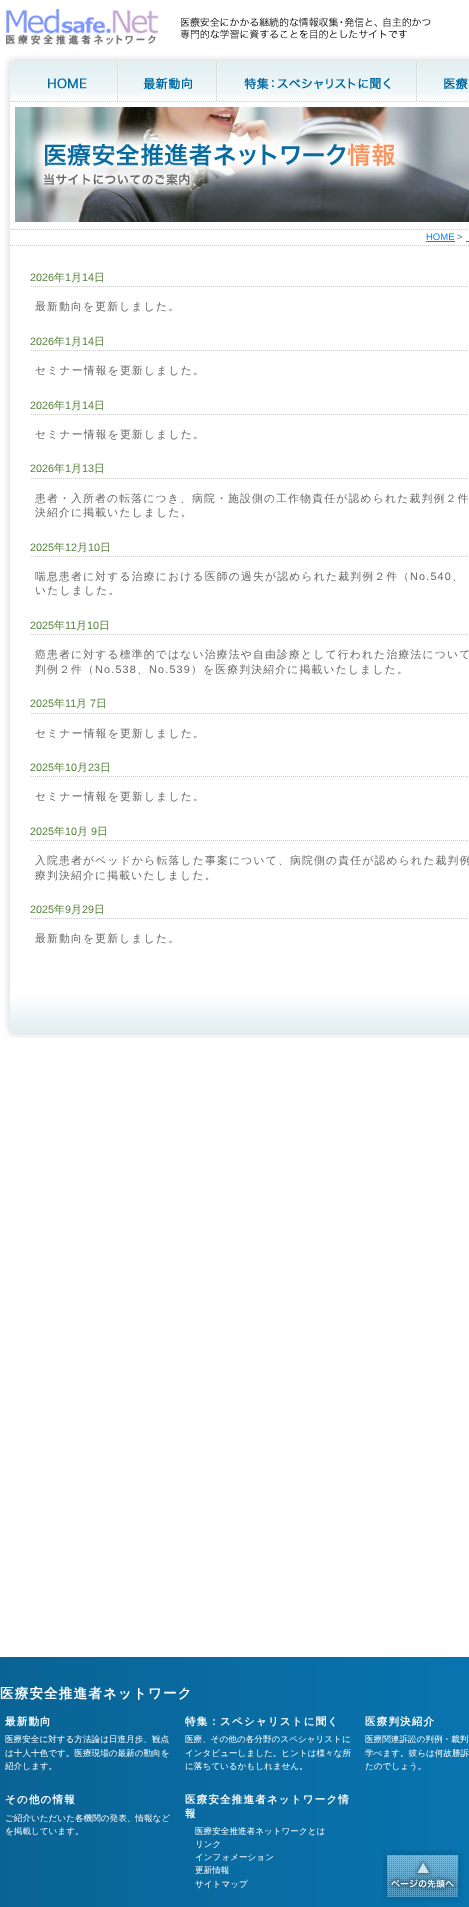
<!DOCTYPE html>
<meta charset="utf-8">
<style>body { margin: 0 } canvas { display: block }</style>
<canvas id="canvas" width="469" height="1907"></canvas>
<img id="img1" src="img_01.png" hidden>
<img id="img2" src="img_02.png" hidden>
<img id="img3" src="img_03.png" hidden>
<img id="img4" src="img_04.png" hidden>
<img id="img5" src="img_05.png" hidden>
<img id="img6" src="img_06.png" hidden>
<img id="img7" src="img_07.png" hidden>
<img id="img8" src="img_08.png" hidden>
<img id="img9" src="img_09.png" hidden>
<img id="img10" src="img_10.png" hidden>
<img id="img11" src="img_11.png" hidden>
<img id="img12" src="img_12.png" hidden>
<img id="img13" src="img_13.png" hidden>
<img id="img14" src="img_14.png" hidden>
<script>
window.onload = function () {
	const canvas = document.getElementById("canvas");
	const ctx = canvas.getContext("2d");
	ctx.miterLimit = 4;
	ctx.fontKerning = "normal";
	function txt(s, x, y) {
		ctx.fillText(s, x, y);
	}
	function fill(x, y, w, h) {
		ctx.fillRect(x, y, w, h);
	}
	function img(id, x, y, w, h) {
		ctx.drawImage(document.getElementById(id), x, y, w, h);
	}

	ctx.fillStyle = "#FFFFFF";
	fill(0, 0, 469, 1907);
	img("img1", 6, 9, 425, 36);
	img("img2", 4, 55, 465, 47);
	img("img3", 10, 61, 108, 41);
	img("img4", 118, 61, 99, 41);
	img("img5", 217, 61, 200, 41);
	img("img6", 417, 61, 52, 41);
	img("img7", 5, 989, 464, 49);
	img("img8", 4, 102, 6, 887);
	img("img9", 11, 229, 457, 1);
	img("img10", 15, 107, 454, 115);
	img("img11", 10, 245, 459, 1);
	ctx.fillStyle = "#0582FF";
	fill(426, 241, 29, 1);
	fill(466, 241, 3, 1);
	img("img12", 31, 286, 437, 1);
	img("img12", 31, 350, 437, 1);
	img("img12", 31, 414, 437, 1);
	img("img12", 31, 478, 437, 1);
	img("img12", 31, 556, 437, 1);
	img("img12", 31, 634, 437, 1);
	img("img12", 31, 713, 437, 1);
	img("img12", 31, 776, 437, 1);
	img("img12", 31, 840, 437, 1);
	img("img12", 31, 918, 437, 1);
	img("img13", 0, 1657, 469, 250);
	img("img14", 382, 1850, 82, 52);
	ctx.font = "9.5px Liberation Sans";
	txt("HOME", 426, 240);
	ctx.fillStyle = "#666666";
	txt(">", 457, 240);
	ctx.font = "10.8px Liberation Sans";
	ctx.fillStyle = "#56833C";
	txt("2026", 30, 281);
	ctx.font = "500 10.8px WenQuanYi Zen Hei";
	txt("年", 54, 281);
	ctx.font = "10.8px Liberation Sans";
	txt("1", 65, 281);
	ctx.font = "500 10.8px WenQuanYi Zen Hei";
	txt("月", 71, 281);
	ctx.font = "10.8px Liberation Sans";
	txt("14", 82, 281);
	ctx.font = "500 10.8px WenQuanYi Zen Hei";
	txt("日", 94, 281);
	ctx.letterSpacing = "1.2px";
	ctx.fillStyle = "#666666";
	txt("最新動向を更新しました。", 35, 310);
	ctx.letterSpacing = "0px";
	ctx.font = "10.8px Liberation Sans";
	ctx.fillStyle = "#56833C";
	txt("2026", 30, 345);
	ctx.font = "500 10.8px WenQuanYi Zen Hei";
	txt("年", 54, 345);
	ctx.font = "10.8px Liberation Sans";
	txt("1", 65, 345);
	ctx.font = "500 10.8px WenQuanYi Zen Hei";
	txt("月", 71, 345);
	ctx.font = "10.8px Liberation Sans";
	txt("14", 82, 345);
	ctx.font = "500 10.8px WenQuanYi Zen Hei";
	txt("日", 94, 345);
	ctx.letterSpacing = "1.2px";
	ctx.fillStyle = "#666666";
	txt("セミナー情報を更新しました。", 35, 374);
	ctx.letterSpacing = "0px";
	ctx.font = "10.8px Liberation Sans";
	ctx.fillStyle = "#56833C";
	txt("2026", 30, 409);
	ctx.font = "500 10.8px WenQuanYi Zen Hei";
	txt("年", 54, 409);
	ctx.font = "10.8px Liberation Sans";
	txt("1", 65, 409);
	ctx.font = "500 10.8px WenQuanYi Zen Hei";
	txt("月", 71, 409);
	ctx.font = "10.8px Liberation Sans";
	txt("14", 82, 409);
	ctx.font = "500 10.8px WenQuanYi Zen Hei";
	txt("日", 94, 409);
	ctx.letterSpacing = "1.2px";
	ctx.fillStyle = "#666666";
	txt("セミナー情報を更新しました。", 35, 438);
	ctx.letterSpacing = "0px";
	ctx.font = "10.8px Liberation Sans";
	ctx.fillStyle = "#56833C";
	txt("2026", 30, 472);
	ctx.font = "500 10.8px WenQuanYi Zen Hei";
	txt("年", 54, 472);
	ctx.font = "10.8px Liberation Sans";
	txt("1", 65, 472);
	ctx.font = "500 10.8px WenQuanYi Zen Hei";
	txt("月", 71, 472);
	ctx.font = "10.8px Liberation Sans";
	txt("13", 82, 472);
	ctx.font = "500 10.8px WenQuanYi Zen Hei";
	txt("日", 94, 472);
	ctx.letterSpacing = "1.2px";
	ctx.fillStyle = "#666666";
	txt("患者・入所者の転落につき、病院・施設側の工作物責任が認められた裁判例２件", 35, 502);
	txt("決紹介に掲載いたしました。", 35, 516);
	ctx.letterSpacing = "0px";
	ctx.font = "10.8px Liberation Sans";
	ctx.fillStyle = "#56833C";
	txt("2025", 30, 551);
	ctx.font = "500 10.8px WenQuanYi Zen Hei";
	txt("年", 54, 551);
	ctx.font = "10.8px Liberation Sans";
	txt("12", 65, 551);
	ctx.font = "500 10.8px WenQuanYi Zen Hei";
	txt("月", 77, 551);
	ctx.font = "10.8px Liberation Sans";
	txt("10", 88, 551);
	ctx.font = "500 10.8px WenQuanYi Zen Hei";
	txt("日", 100, 551);
	ctx.letterSpacing = "1.2px";
	ctx.fillStyle = "#666666";
	txt("喘息患者に対する治療における医師の過失が認められた裁判例２件（", 35, 580);
	ctx.font = "10.8px Liberation Sans";
	txt("No.540", 410, 580);
	ctx.font = "500 10.8px WenQuanYi Zen Hei";
	txt("、", 452, 580);
	txt("いたしました。", 35, 594);
	ctx.letterSpacing = "0px";
	ctx.font = "10.8px Liberation Sans";
	ctx.fillStyle = "#56833C";
	txt("2025", 30, 629);
	ctx.font = "500 10.8px WenQuanYi Zen Hei";
	txt("年", 54, 629);
	ctx.font = "10.8px Liberation Sans";
	txt("11", 65, 629);
	ctx.font = "500 10.8px WenQuanYi Zen Hei";
	txt("月", 76, 629);
	ctx.font = "10.8px Liberation Sans";
	txt("10", 87, 629);
	ctx.font = "500 10.8px WenQuanYi Zen Hei";
	txt("日", 99, 629);
	ctx.letterSpacing = "1.2px";
	ctx.fillStyle = "#666666";
	txt("癌患者に対する標準的ではない治療法や自由診療として行われた治療法について", 35, 658);
	txt("判例２件（", 35, 673);
	ctx.font = "10.8px Liberation Sans";
	txt("No.538", 95, 673);
	ctx.font = "500 10.8px WenQuanYi Zen Hei";
	txt("、", 137, 673);
	ctx.font = "10.8px Liberation Sans";
	txt("No.539", 149, 673);
	ctx.font = "500 10.8px WenQuanYi Zen Hei";
	txt("）を医療判決紹介に掲載いたしました。", 191, 673);
	ctx.letterSpacing = "0px";
	ctx.font = "10.8px Liberation Sans";
	ctx.fillStyle = "#56833C";
	txt("2025", 30, 707);
	ctx.font = "500 10.8px WenQuanYi Zen Hei";
	txt("年", 54, 707);
	ctx.font = "10.8px Liberation Sans";
	txt("11", 65, 707);
	ctx.font = "500 10.8px WenQuanYi Zen Hei";
	txt("月", 76, 707);
	ctx.font = "10.8px Liberation Sans";
	txt("7", 90, 707);
	ctx.font = "500 10.8px WenQuanYi Zen Hei";
	txt("日", 96, 707);
	ctx.letterSpacing = "1.2px";
	ctx.fillStyle = "#666666";
	txt("セミナー情報を更新しました。", 35, 737);
	ctx.letterSpacing = "0px";
	ctx.font = "10.8px Liberation Sans";
	ctx.fillStyle = "#56833C";
	txt("2025", 30, 771);
	ctx.font = "500 10.8px WenQuanYi Zen Hei";
	txt("年", 54, 771);
	ctx.font = "10.8px Liberation Sans";
	txt("10", 65, 771);
	ctx.font = "500 10.8px WenQuanYi Zen Hei";
	txt("月", 77, 771);
	ctx.font = "10.8px Liberation Sans";
	txt("23", 88, 771);
	ctx.font = "500 10.8px WenQuanYi Zen Hei";
	txt("日", 100, 771);
	ctx.letterSpacing = "1.2px";
	ctx.fillStyle = "#666666";
	txt("セミナー情報を更新しました。", 35, 800);
	ctx.letterSpacing = "0px";
	ctx.font = "10.8px Liberation Sans";
	ctx.fillStyle = "#56833C";
	txt("2025", 30, 835);
	ctx.font = "500 10.8px WenQuanYi Zen Hei";
	txt("年", 54, 835);
	ctx.font = "10.8px Liberation Sans";
	txt("10", 65, 835);
	ctx.font = "500 10.8px WenQuanYi Zen Hei";
	txt("月", 77, 835);
	ctx.font = "10.8px Liberation Sans";
	txt("9", 91, 835);
	ctx.font = "500 10.8px WenQuanYi Zen Hei";
	txt("日", 97, 835);
	ctx.letterSpacing = "1.2px";
	ctx.fillStyle = "#666666";
	txt("入院患者がベッドから転落した事案について、病院側の責任が認められた裁判例", 35, 864);
	txt("療判決紹介に掲載いたしました。", 35, 879);
	ctx.letterSpacing = "0px";
	ctx.font = "10.8px Liberation Sans";
	ctx.fillStyle = "#56833C";
	txt("2025", 30, 913);
	ctx.font = "500 10.8px WenQuanYi Zen Hei";
	txt("年", 54, 913);
	ctx.font = "10.8px Liberation Sans";
	txt("9", 65, 913);
	ctx.font = "500 10.8px WenQuanYi Zen Hei";
	txt("月", 71, 913);
	ctx.font = "10.8px Liberation Sans";
	txt("29", 82, 913);
	ctx.font = "500 10.8px WenQuanYi Zen Hei";
	txt("日", 94, 913);
	ctx.letterSpacing = "1.2px";
	ctx.fillStyle = "#666666";
	txt("最新動向を更新しました。", 35, 942);
	ctx.font = "bold 13.5px WenQuanYi Zen Hei";
	ctx.fillStyle = "#FFFFFF";
	txt("医療安全推進者ネットワーク", 0, 1698);
	ctx.font = "bold 10.5px WenQuanYi Zen Hei";
	txt("最新動向", 5, 1725);
	ctx.letterSpacing = "0px";
	ctx.font = "500 8.6px WenQuanYi Zen Hei";
	txt("医療安全に対する方法論は日進月歩、観点", 5, 1742);
	txt("は十人十色です。医療現場の最新の動向を", 5, 1756);
	txt("紹介します。", 5, 1769);
	ctx.letterSpacing = "1.2px";
	ctx.font = "bold 10.5px WenQuanYi Zen Hei";
	txt("特集：スペシャリストに聞く", 185, 1725);
	ctx.letterSpacing = "0px";
	ctx.font = "500 8.6px WenQuanYi Zen Hei";
	txt("医療、その他の各分野のスペシャリストに", 185, 1742);
	txt("インタビューしました。ヒントは様々な所", 185, 1756);
	txt("に落ちているかもしれません。", 185, 1769);
	ctx.letterSpacing = "1.2px";
	ctx.font = "bold 10.5px WenQuanYi Zen Hei";
	txt("医療判決紹介", 365, 1725);
	ctx.letterSpacing = "0px";
	ctx.font = "500 8.6px WenQuanYi Zen Hei";
	txt("医療関連訴訟の判例・裁判", 365, 1742);
	txt("学べます。彼らは何故勝訴", 365, 1756);
	txt("たのでしょう。", 365, 1769);
	ctx.letterSpacing = "1.2px";
	ctx.font = "bold 10.5px WenQuanYi Zen Hei";
	txt("その他の情報", 5, 1803);
	ctx.letterSpacing = "0px";
	ctx.font = "500 8.6px WenQuanYi Zen Hei";
	txt("ご紹介いただいた各機関の発表、情報など", 5, 1821);
	txt("を掲載しています。", 5, 1834);
	ctx.letterSpacing = "1.2px";
	ctx.font = "bold 10.5px WenQuanYi Zen Hei";
	txt("医療安全推進者ネットワーク情", 185, 1803);
	txt("報", 185, 1817);
	ctx.letterSpacing = "0px";
	ctx.font = "500 8.6px WenQuanYi Zen Hei";
	txt("医療安全推進者ネットワークとは", 195, 1834);
	txt("リンク", 195, 1847);
	txt("インフォメーション", 195, 1860);
	txt("更新情報", 195, 1873);
	txt("サイトマップ", 195, 1887);
};
</script>
